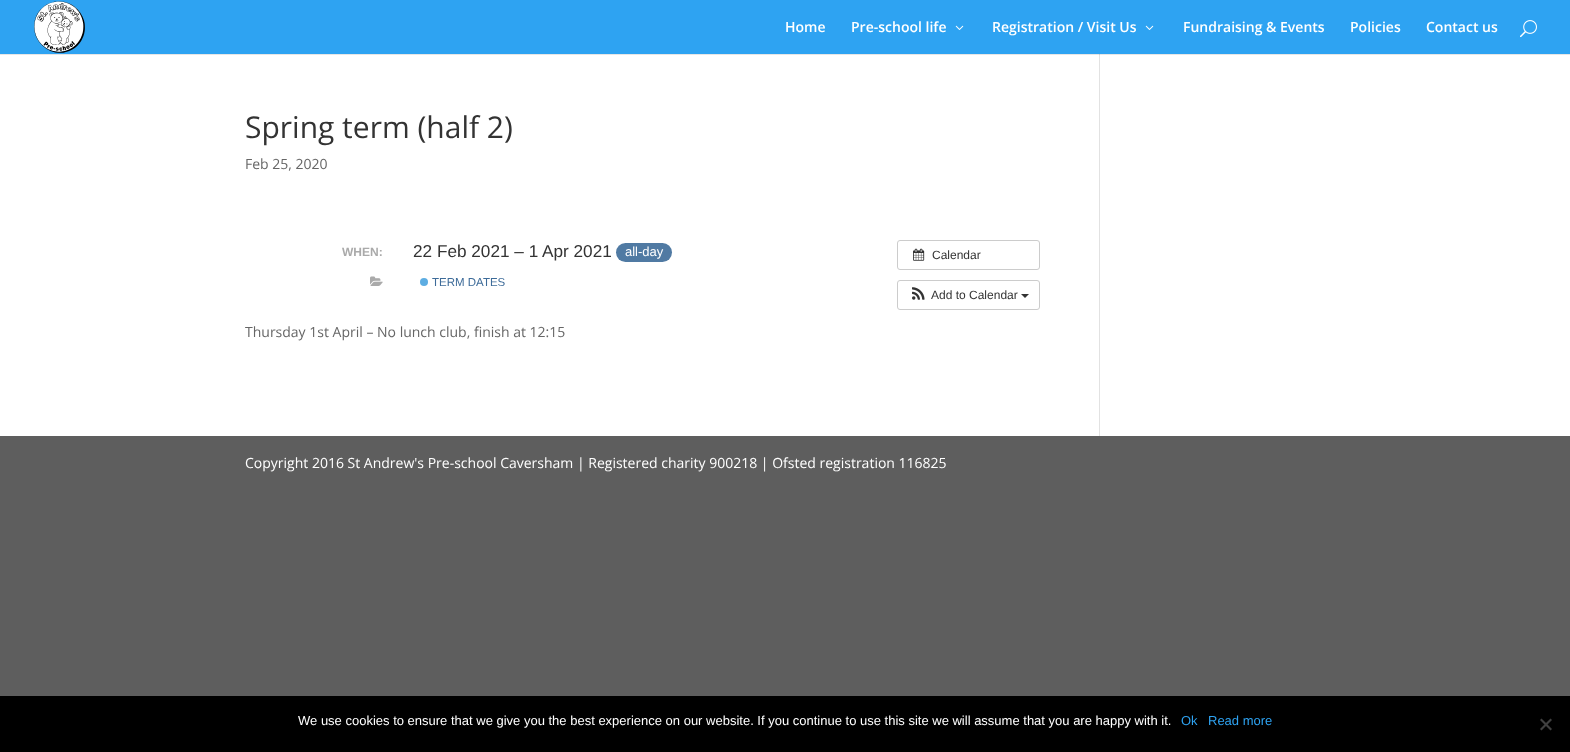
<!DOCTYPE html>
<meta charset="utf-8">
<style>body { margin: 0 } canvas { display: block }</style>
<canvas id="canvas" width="1570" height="752"></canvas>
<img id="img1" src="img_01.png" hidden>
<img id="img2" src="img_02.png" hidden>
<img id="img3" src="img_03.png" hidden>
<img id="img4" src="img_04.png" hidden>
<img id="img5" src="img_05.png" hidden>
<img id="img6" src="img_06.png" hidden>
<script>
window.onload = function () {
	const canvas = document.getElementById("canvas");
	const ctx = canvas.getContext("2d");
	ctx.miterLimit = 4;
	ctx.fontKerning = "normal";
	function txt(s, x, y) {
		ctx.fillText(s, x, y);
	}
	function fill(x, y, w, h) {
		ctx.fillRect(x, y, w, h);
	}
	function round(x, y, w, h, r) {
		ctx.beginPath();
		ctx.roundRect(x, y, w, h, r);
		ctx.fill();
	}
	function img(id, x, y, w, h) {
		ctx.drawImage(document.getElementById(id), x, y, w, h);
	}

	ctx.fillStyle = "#5E5E5E";
	fill(0, 0, 1570, 752);
	ctx.fillStyle = "#2EA3F2";
	fill(0, 0, 1570, 54);
	img("img1", 34, 1, 51, 52);
	img("img2", 955, 25, 9, 5);
	img("img2", 1145, 25, 9, 5);
	img("img3", 1520, 20, 17, 18);
	ctx.fillStyle = "#FFFFFF";
	fill(0, 55, 1570, 381);
	ctx.fillStyle = "#E6E6E6";
	fill(0, 54, 1570, 1);
	ctx.fillStyle = "#507AA3";
	round(616, 243, 56, 19, 9.5);
	img("img4", 370, 276, 13, 10);
	ctx.fillStyle = "#5DADE2";
	ctx.beginPath();
	ctx.arc(424, 282, 4, 0, Math.PI * 2);
	ctx.fill();
	ctx.beginPath();
	ctx.roundRect(897.5, 240.5, 142, 29, 2.5);
	ctx.strokeStyle = "#CCCCCC";
	ctx.stroke();
	img("img5", 913, 248, 12, 13);
	ctx.beginPath();
	ctx.roundRect(897.5, 280.5, 142, 29, 2.5);
	ctx.stroke();
	img("img6", 912, 287, 13, 13);
	ctx.fillStyle = "#333333";
	ctx.beginPath();
	ctx.moveTo(1021, 294);
	ctx.lineTo(1029, 294);
	ctx.lineTo(1025, 298);
	ctx.closePath();
	ctx.fill();
	ctx.fillStyle = "#E2E2E2";
	fill(1099, 54, 1, 382);
	ctx.fillStyle = "#CBCBCB";
	fill(1099, 54, 1, 1);
	ctx.fillStyle = "#000000";
	fill(0, 696, 1570, 56);
	ctx.fillStyle = "#404040";
	ctx.beginPath();
	ctx.moveTo(1550.5, 718.5);
	ctx.lineTo(1552, 720);
	ctx.lineTo(1541.5, 730.5);
	ctx.lineTo(1540, 729);
	ctx.closePath();
	ctx.fill();
	ctx.beginPath();
	ctx.moveTo(1540, 720);
	ctx.lineTo(1541.5, 718.5);
	ctx.lineTo(1552, 729);
	ctx.lineTo(1550.5, 730.5);
	ctx.closePath();
	ctx.fill();
	ctx.font = "600 14px Open Sans";
	ctx.fillStyle = "#FFFFFF";
	txt("Home", 785, 32);
	txt("Pre-school life", 851, 32);
	txt("Registration / Visit Us", 992, 32);
	txt("Fundraising & Events", 1183, 32);
	txt("Policies", 1350, 32);
	txt("Contact us", 1426, 32);
	ctx.font = "30px Open Sans";
	ctx.fillStyle = "#333333";
	txt("Spring term (half 2)", 245, 138);
	ctx.font = "14px Open Sans";
	ctx.fillStyle = "#666666";
	txt("Feb 25, 2020", 245, 169);
	ctx.font = "bold 12px Liberation Sans";
	ctx.fillStyle = "#AAAAAA";
	txt("WHEN:", 342, 256);
	ctx.font = "17.2px Liberation Sans";
	ctx.fillStyle = "#333333";
	txt("22 Feb 2021 – 1 Apr 2021", 413, 257);
	ctx.font = "13px Liberation Sans";
	ctx.fillStyle = "#FFFFFF";
	txt("all-day", 625, 256);
	ctx.font = "11.5px Liberation Sans";
	ctx.fillStyle = "#3D6B99";
	txt("TERM DATES", 432, 286);
	ctx.font = "12px Liberation Sans";
	ctx.fillStyle = "#333333";
	txt("Calendar", 932, 259);
	txt("Add to Calendar", 931, 299);
	ctx.font = "14px Open Sans";
	ctx.fillStyle = "#666666";
	txt("Thursday 1st April – No lunch club, finish at 12:15", 245, 337);
	ctx.fillStyle = "#FFFFFF";
	txt("Copyright 2016 St Andrew's Pre-school Caversham | Registered charity 900218 | Ofsted registration 116825", 245, 468);
	ctx.font = "13px Liberation Sans";
	txt("We use cookies to ensure that we give you the best experience on our website. If you continue to use this site we will assume that you are happy with it.", 298, 725);
	ctx.fillStyle = "#2EA3F2";
	txt("Ok", 1181, 725);
	txt("Read more", 1208, 725);
};
</script>
